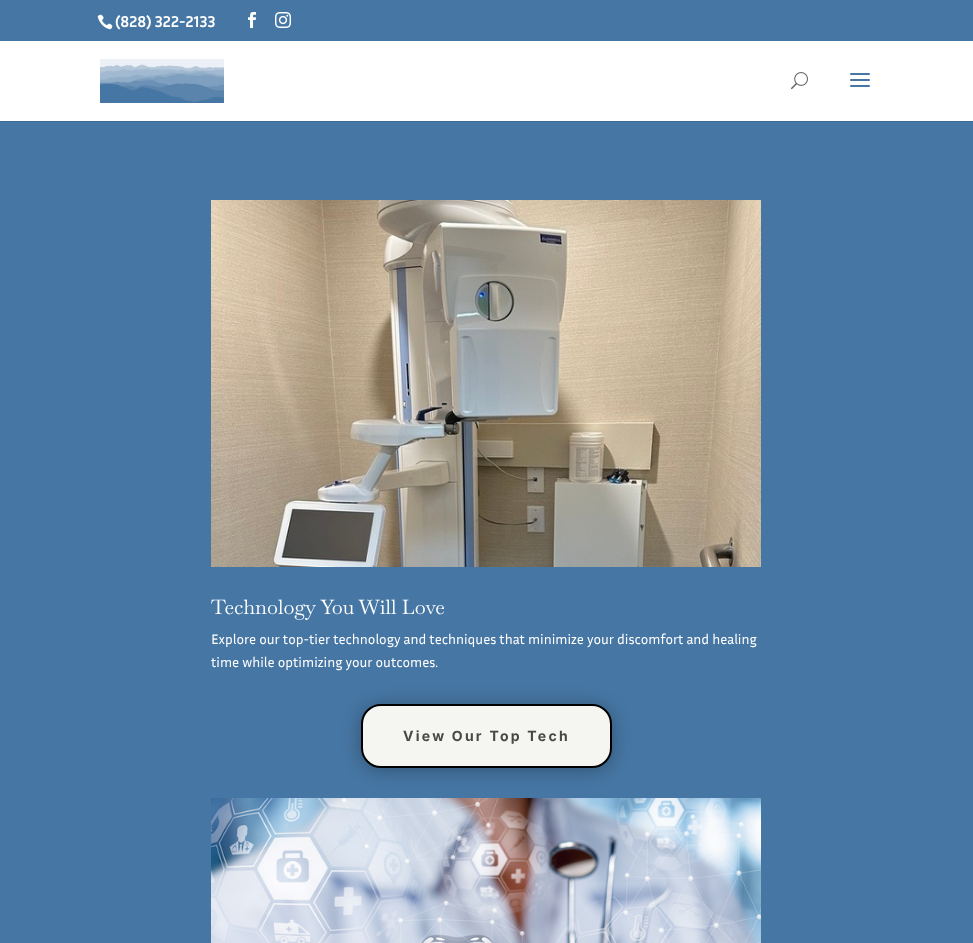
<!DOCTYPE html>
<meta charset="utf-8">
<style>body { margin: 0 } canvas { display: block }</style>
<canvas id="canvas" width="973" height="943"></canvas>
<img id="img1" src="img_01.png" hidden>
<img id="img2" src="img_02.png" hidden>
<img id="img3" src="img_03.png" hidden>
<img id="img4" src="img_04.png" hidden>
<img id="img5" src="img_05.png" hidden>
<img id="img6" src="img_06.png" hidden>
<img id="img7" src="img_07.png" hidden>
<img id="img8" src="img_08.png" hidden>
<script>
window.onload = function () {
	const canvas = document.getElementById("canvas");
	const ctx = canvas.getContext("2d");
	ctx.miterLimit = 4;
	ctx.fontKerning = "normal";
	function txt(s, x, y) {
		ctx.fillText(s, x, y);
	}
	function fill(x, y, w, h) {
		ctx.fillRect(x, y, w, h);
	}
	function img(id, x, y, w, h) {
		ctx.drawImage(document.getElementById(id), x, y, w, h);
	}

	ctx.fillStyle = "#4676A3";
	fill(0, 0, 973, 943);
	img("img1", 97, 14, 16, 16);
	img("img2", 248, 12, 8, 16);
	img("img3", 275, 12, 16, 16);
	ctx.fillStyle = "#3F6A93";
	fill(0, 121, 973, 1);
	ctx.fillStyle = "#FFFFFF";
	fill(0, 41, 973, 80);
	img("img4", 100, 59, 124, 44);
	img("img5", 791, 72, 17, 18);
	img("img6", 850, 73, 20, 14);
	img("img7", 211, 200, 550, 367);
	ctx.fillStyle = "rgba(0, 0, 0, 0.3)";
	ctx.filter = "blur(9px)";
	ctx.beginPath();
	ctx.roundRect(361, 706, 251, 64, 20);
	ctx.fill();
	ctx.filter = "none";
	ctx.fillStyle = "#F5F6F1";
	ctx.beginPath();
	ctx.roundRect(362, 705, 249, 62, 19);
	ctx.fill();
	ctx.strokeStyle = "#000000";
	ctx.lineWidth = 2;
	ctx.stroke();
	img("img8", 211, 798, 550, 145);
	ctx.font = "bold 16px Inria Sans";
	ctx.fillStyle = "#FFFFFF";
	txt("(828) 322-2133", 115, 27);
	ctx.font = "20px Baskervville";
	txt("Technology You Will Love", 211, 614);
	ctx.font = "14px Inria Sans";
	txt("Explore our top-tier technology and techniques that minimize your discomfort and healing", 211, 644);
	txt("time while optimizing your outcomes.", 211, 667);
	ctx.letterSpacing = "2.25px";
	ctx.font = "bold 14px Inter";
	ctx.fillStyle = "#474747";
	txt("View Our Top Tech", 403, 741);
};
</script>
